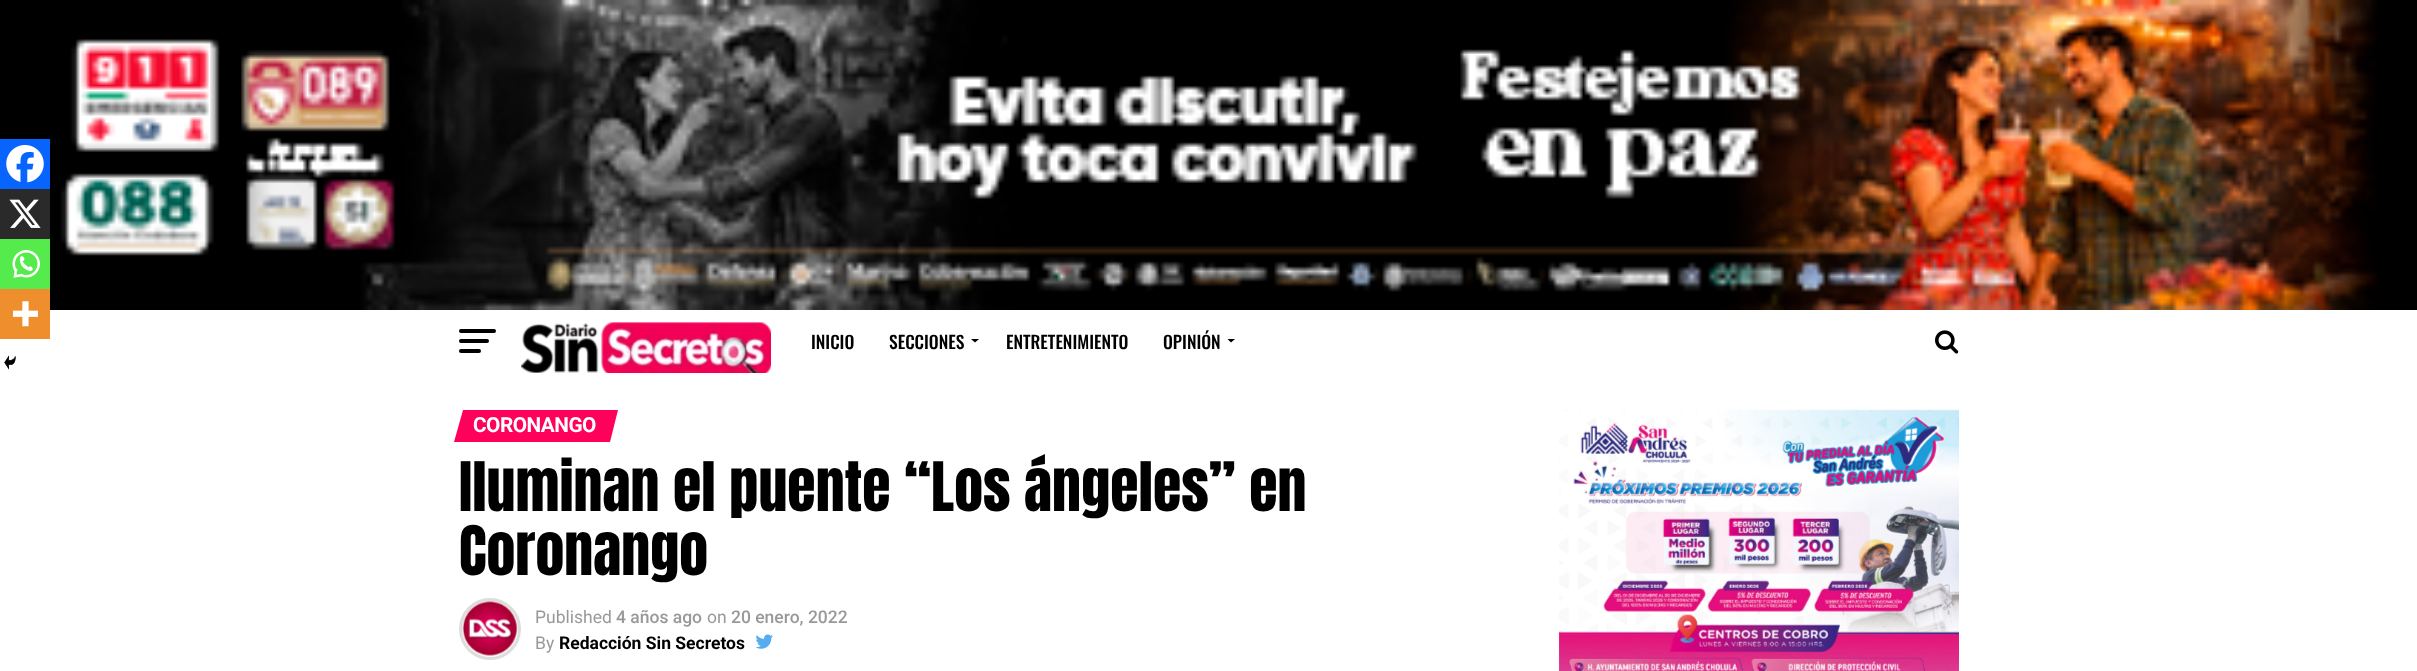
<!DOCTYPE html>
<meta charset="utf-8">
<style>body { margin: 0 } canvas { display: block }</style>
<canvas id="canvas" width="2417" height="671"></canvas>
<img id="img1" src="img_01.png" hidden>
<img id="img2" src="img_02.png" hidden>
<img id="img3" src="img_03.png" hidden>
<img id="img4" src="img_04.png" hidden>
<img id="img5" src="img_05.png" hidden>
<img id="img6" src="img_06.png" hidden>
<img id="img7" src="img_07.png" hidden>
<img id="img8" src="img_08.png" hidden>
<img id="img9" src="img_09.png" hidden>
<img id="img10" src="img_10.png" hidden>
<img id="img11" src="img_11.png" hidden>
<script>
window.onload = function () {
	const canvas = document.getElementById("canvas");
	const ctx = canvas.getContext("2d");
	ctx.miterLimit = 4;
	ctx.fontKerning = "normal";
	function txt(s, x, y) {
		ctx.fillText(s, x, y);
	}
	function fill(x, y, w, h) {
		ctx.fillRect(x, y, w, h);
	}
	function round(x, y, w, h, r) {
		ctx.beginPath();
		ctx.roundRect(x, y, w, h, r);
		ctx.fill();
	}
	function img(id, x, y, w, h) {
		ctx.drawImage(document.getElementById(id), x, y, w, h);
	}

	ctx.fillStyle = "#FFFFFF";
	fill(0, 0, 2417, 671);
	img("img1", 0, 0, 2417, 310);
	ctx.fillStyle = "#000000";
	round(459, 329, 37, 4, 2);
	round(459, 339, 30, 4, 2);
	round(459, 349, 22, 4, 2);
	img("img2", 521, 322, 250, 51);
	ctx.beginPath();
	ctx.moveTo(971, 339);
	ctx.lineTo(979, 339);
	ctx.lineTo(975, 342.5);
	ctx.closePath();
	ctx.fill();
	ctx.beginPath();
	ctx.moveTo(1227.5, 339);
	ctx.lineTo(1235, 339);
	ctx.lineTo(1231, 342.5);
	ctx.closePath();
	ctx.fill();
	img("img3", 1935, 330, 24, 24);
	ctx.fillStyle = "#0765FE";
	fill(0, 139, 50, 50);
	img("img4", 6, 145, 38, 38);
	ctx.fillStyle = "#2A2A2A";
	fill(0, 189, 50, 50);
	img("img5", 9, 199, 32, 29);
	ctx.fillStyle = "#55EB4C";
	fill(0, 239, 50, 50);
	img("img6", 12, 250, 28, 28);
	ctx.fillStyle = "#EE8E2D";
	fill(0, 289, 50, 50);
	img("img7", 12, 301, 26, 26);
	img("img8", 4, 355, 12, 15);
	ctx.fillStyle = "#FF005B";
	ctx.beginPath();
	ctx.moveTo(463, 410);
	ctx.lineTo(618, 410);
	ctx.lineTo(610, 442);
	ctx.lineTo(454, 442);
	ctx.closePath();
	ctx.fill();
	ctx.beginPath();
	ctx.arc(490, 629, 29.5, 0, Math.PI * 2);
	ctx.strokeStyle = "#DDDDDD";
	ctx.lineWidth = 3;
	ctx.stroke();
	img("img9", 462, 601, 56, 55);
	img("img10", 755, 634, 18, 15);
	img("img11", 1559, 409, 400, 262);
	ctx.font = "500 17.5px Oswald";
	ctx.fillStyle = "#000000";
	txt("INICIO", 811, 349);
	txt("SECCIONES", 889, 349);
	txt("ENTRETENIMIENTO", 1006, 349);
	txt("OPINIÓN", 1163, 349);
	ctx.letterSpacing = "-0.5px";
	ctx.font = "bold 20.75px Roboto";
	ctx.fillStyle = "#FFFFFF";
	txt("CORONANGO", 473, 432);
	ctx.letterSpacing = "0px";
	ctx.font = "58px Anton";
	ctx.fillStyle = "#000000";
	txt("Iluminan el puente “Los ángeles” en", 459, 511);
	txt("Coronango", 459, 575);
	ctx.font = "17.5px Roboto";
	ctx.fillStyle = "#999999";
	txt("Published", 535, 623);
	ctx.font = "500 17.5px Roboto";
	txt("4 años ago", 616, 623);
	ctx.font = "17.5px Roboto";
	txt("on", 707, 623);
	ctx.font = "500 17.5px Roboto";
	txt("20 enero, 2022", 731, 623);
	ctx.font = "17.5px Roboto";
	txt("By", 535, 649);
	ctx.font = "bold 17.5px Roboto";
	ctx.fillStyle = "#000000";
	txt("Redacción Sin Secretos", 559, 649);
};
</script>
